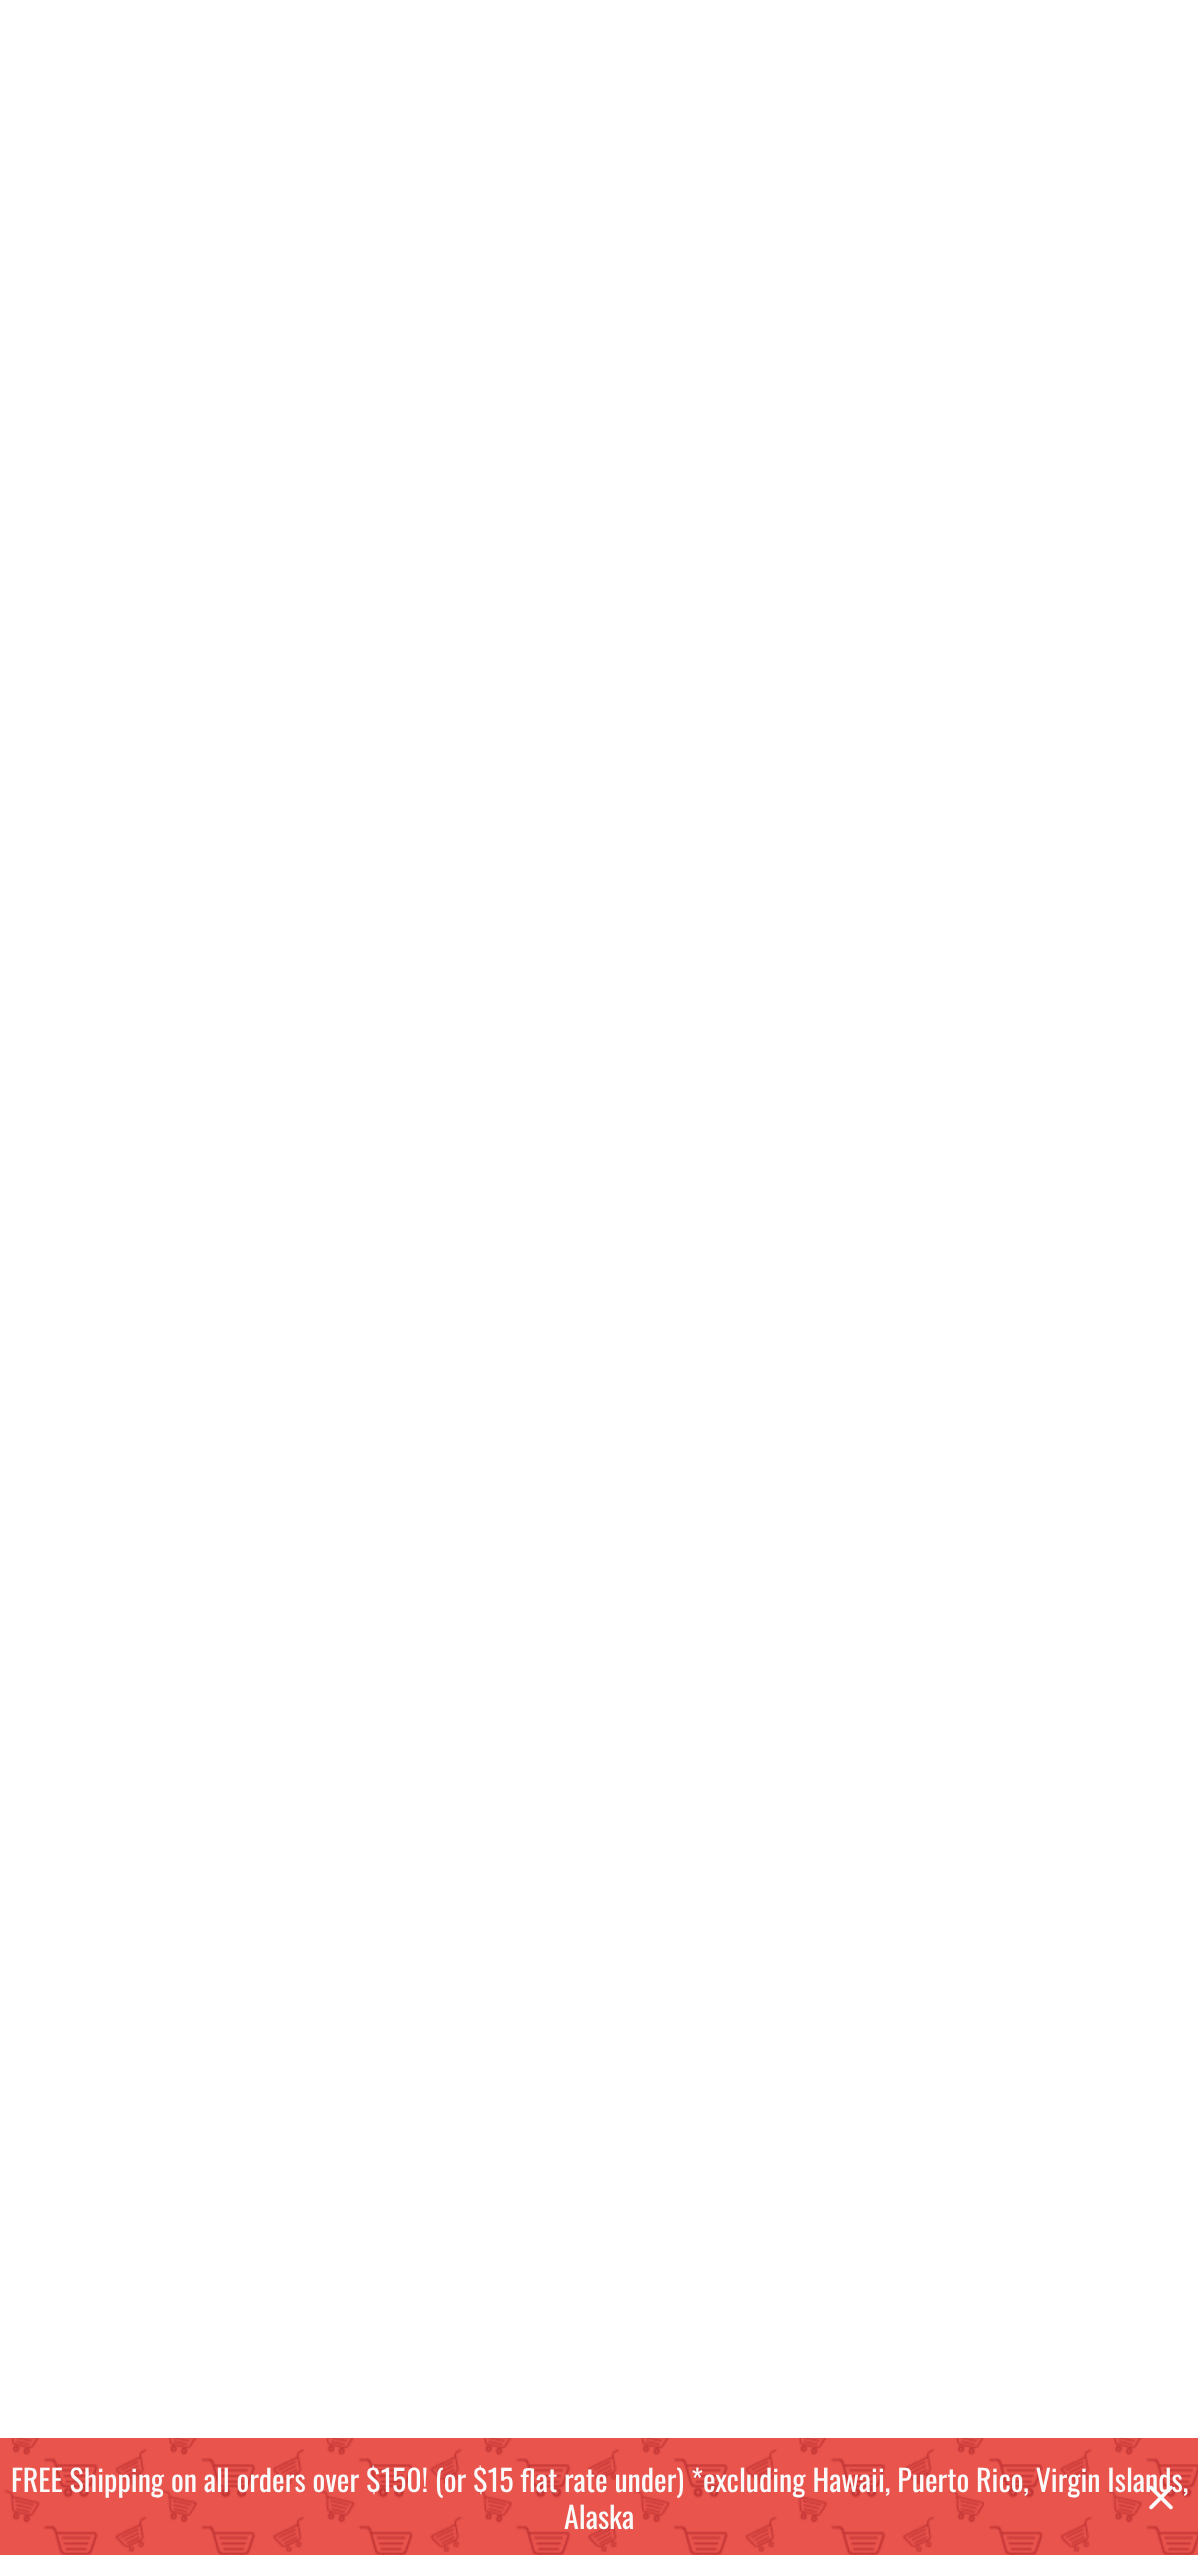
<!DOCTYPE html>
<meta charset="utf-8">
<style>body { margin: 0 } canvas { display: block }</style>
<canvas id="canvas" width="1198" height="2555"></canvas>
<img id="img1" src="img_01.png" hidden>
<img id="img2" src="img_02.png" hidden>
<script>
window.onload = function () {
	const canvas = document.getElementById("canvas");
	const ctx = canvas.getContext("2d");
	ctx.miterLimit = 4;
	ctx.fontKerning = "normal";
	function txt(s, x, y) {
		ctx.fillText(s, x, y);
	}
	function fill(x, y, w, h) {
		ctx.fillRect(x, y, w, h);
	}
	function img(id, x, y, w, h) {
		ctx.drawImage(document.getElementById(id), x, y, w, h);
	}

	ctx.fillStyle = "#FFFFFF";
	fill(0, 0, 1198, 2555);
	img("img1", 0, 2438, 1198, 117);
	ctx.font = "30px Oswald";
	ctx.fillStyle = "#FAFAFA";
	txt("FREE Shipping on all orders over $150! (or $15 flat rate under) *excluding Hawaii, Puerto Rico, Virgin Islands,", 11, 2492);
	txt("Alaska", 564, 2529);
	img("img2", 1149, 2485, 24, 25);
};
</script>
